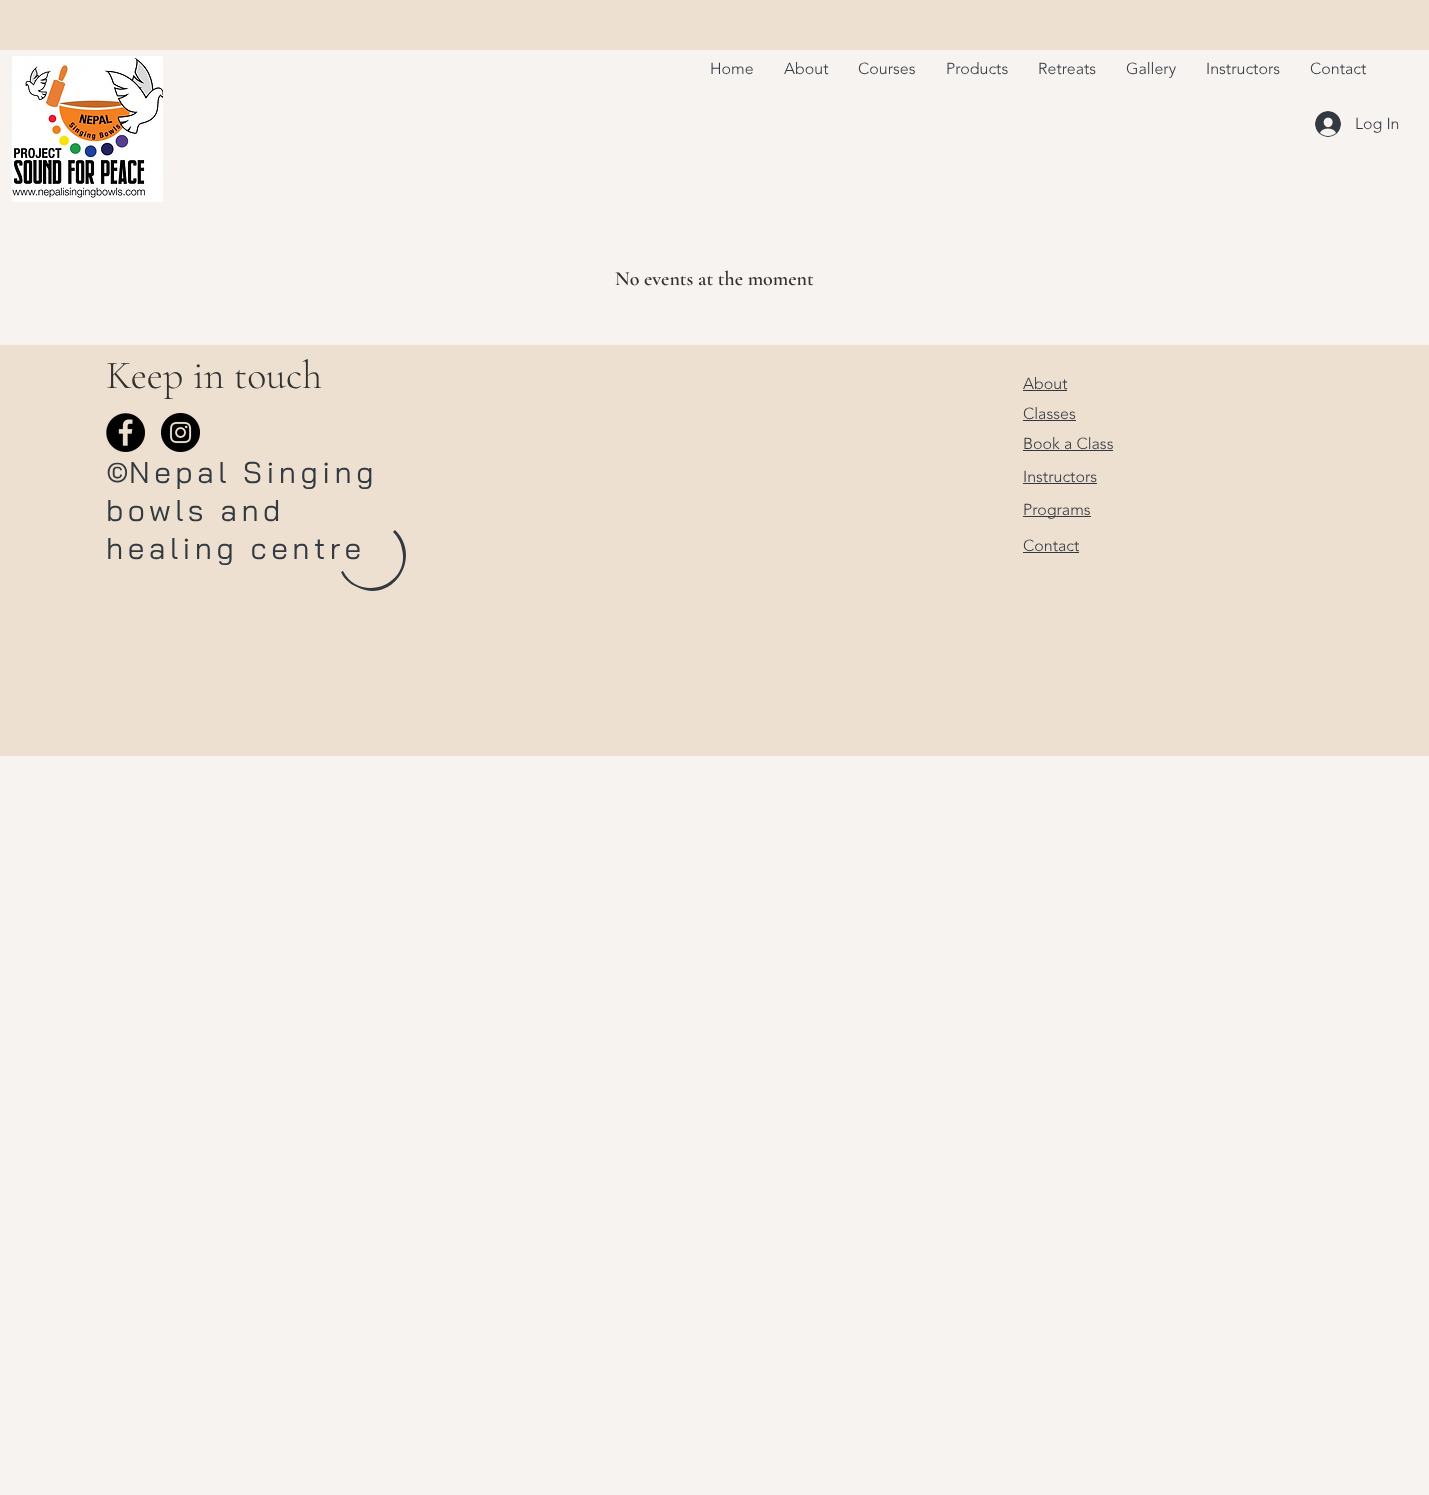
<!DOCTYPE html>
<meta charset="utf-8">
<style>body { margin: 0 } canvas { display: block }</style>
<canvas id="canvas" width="1429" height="1495"></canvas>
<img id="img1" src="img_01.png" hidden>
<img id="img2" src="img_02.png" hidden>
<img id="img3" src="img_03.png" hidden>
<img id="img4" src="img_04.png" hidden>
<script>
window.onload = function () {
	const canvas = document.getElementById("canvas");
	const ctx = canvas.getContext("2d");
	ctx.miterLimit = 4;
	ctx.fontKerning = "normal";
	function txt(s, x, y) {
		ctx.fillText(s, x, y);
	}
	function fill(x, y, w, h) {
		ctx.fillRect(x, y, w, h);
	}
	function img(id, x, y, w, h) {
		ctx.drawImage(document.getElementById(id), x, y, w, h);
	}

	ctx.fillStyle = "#F6F3F0";
	fill(0, 0, 1429, 1495);
	ctx.fillStyle = "#EEE0D1";
	fill(0, 0, 1429, 50);
	img("img1", 12, 56, 151, 146);
	img("img2", 1315, 111, 26, 26);
	fill(0, 345, 1429, 411);
	img("img3", 106, 413, 39, 39);
	img("img4", 161, 413, 39, 39);
	ctx.fillStyle = "#333941";
	ctx.beginPath();
	ctx.moveTo(402, 549);
	ctx.bezierCurveTo(411, 585, 360, 604, 343, 571);
	ctx.lineTo(341, 572);
	ctx.bezierCurveTo(344, 579, 350, 584, 357, 587);
	ctx.bezierCurveTo(393, 605, 423, 557, 395, 530);
	ctx.lineTo(393, 532);
	ctx.bezierCurveTo(397, 536, 401, 542, 402, 549);
	ctx.closePath();
	ctx.fill();
	fill(1023, 390, 44, 1);
	fill(1023, 420, 53, 1);
	fill(1023, 450, 90, 1);
	fill(1023, 483, 74, 1);
	fill(1023, 516, 68, 1);
	fill(1023, 552, 56, 1);
	ctx.font = "300 16px 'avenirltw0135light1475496'";
	txt("Home", 710, 74);
	txt("About", 784, 74);
	txt("Courses", 858, 74);
	txt("Products", 946, 74);
	txt("Retreats", 1038, 74);
	txt("Gallery", 1126, 74);
	txt("Instructors", 1206, 74);
	txt("Contact", 1310, 74);
	txt("Log In", 1355, 129);
	ctx.font = "600 20px Cormorant Garamond";
	ctx.fillStyle = "#313130";
	txt("No events at the moment", 615, 285);
	ctx.font = "300 40px Cormorant Garamond";
	txt("Keep in touch", 106, 388);
	ctx.font = "30px Bai Jamjuree";
	ctx.fillStyle = "#333941";
	txt("©", 106, 483);
	ctx.letterSpacing = "4.5px";
	txt("Nepal Singing", 129, 483);
	txt("bowls and", 106, 521);
	txt("healing centre", 106, 559);
	ctx.letterSpacing = "0px";
	ctx.font = "300 16px 'avenirltw0135light1475496'";
	txt("About", 1023, 389);
	txt("Classes", 1023, 419);
	txt("Book a Class", 1023, 449);
	txt("Instructors", 1023, 482);
	txt("Programs", 1023, 515);
	txt("Contact", 1023, 551);
};
</script>
